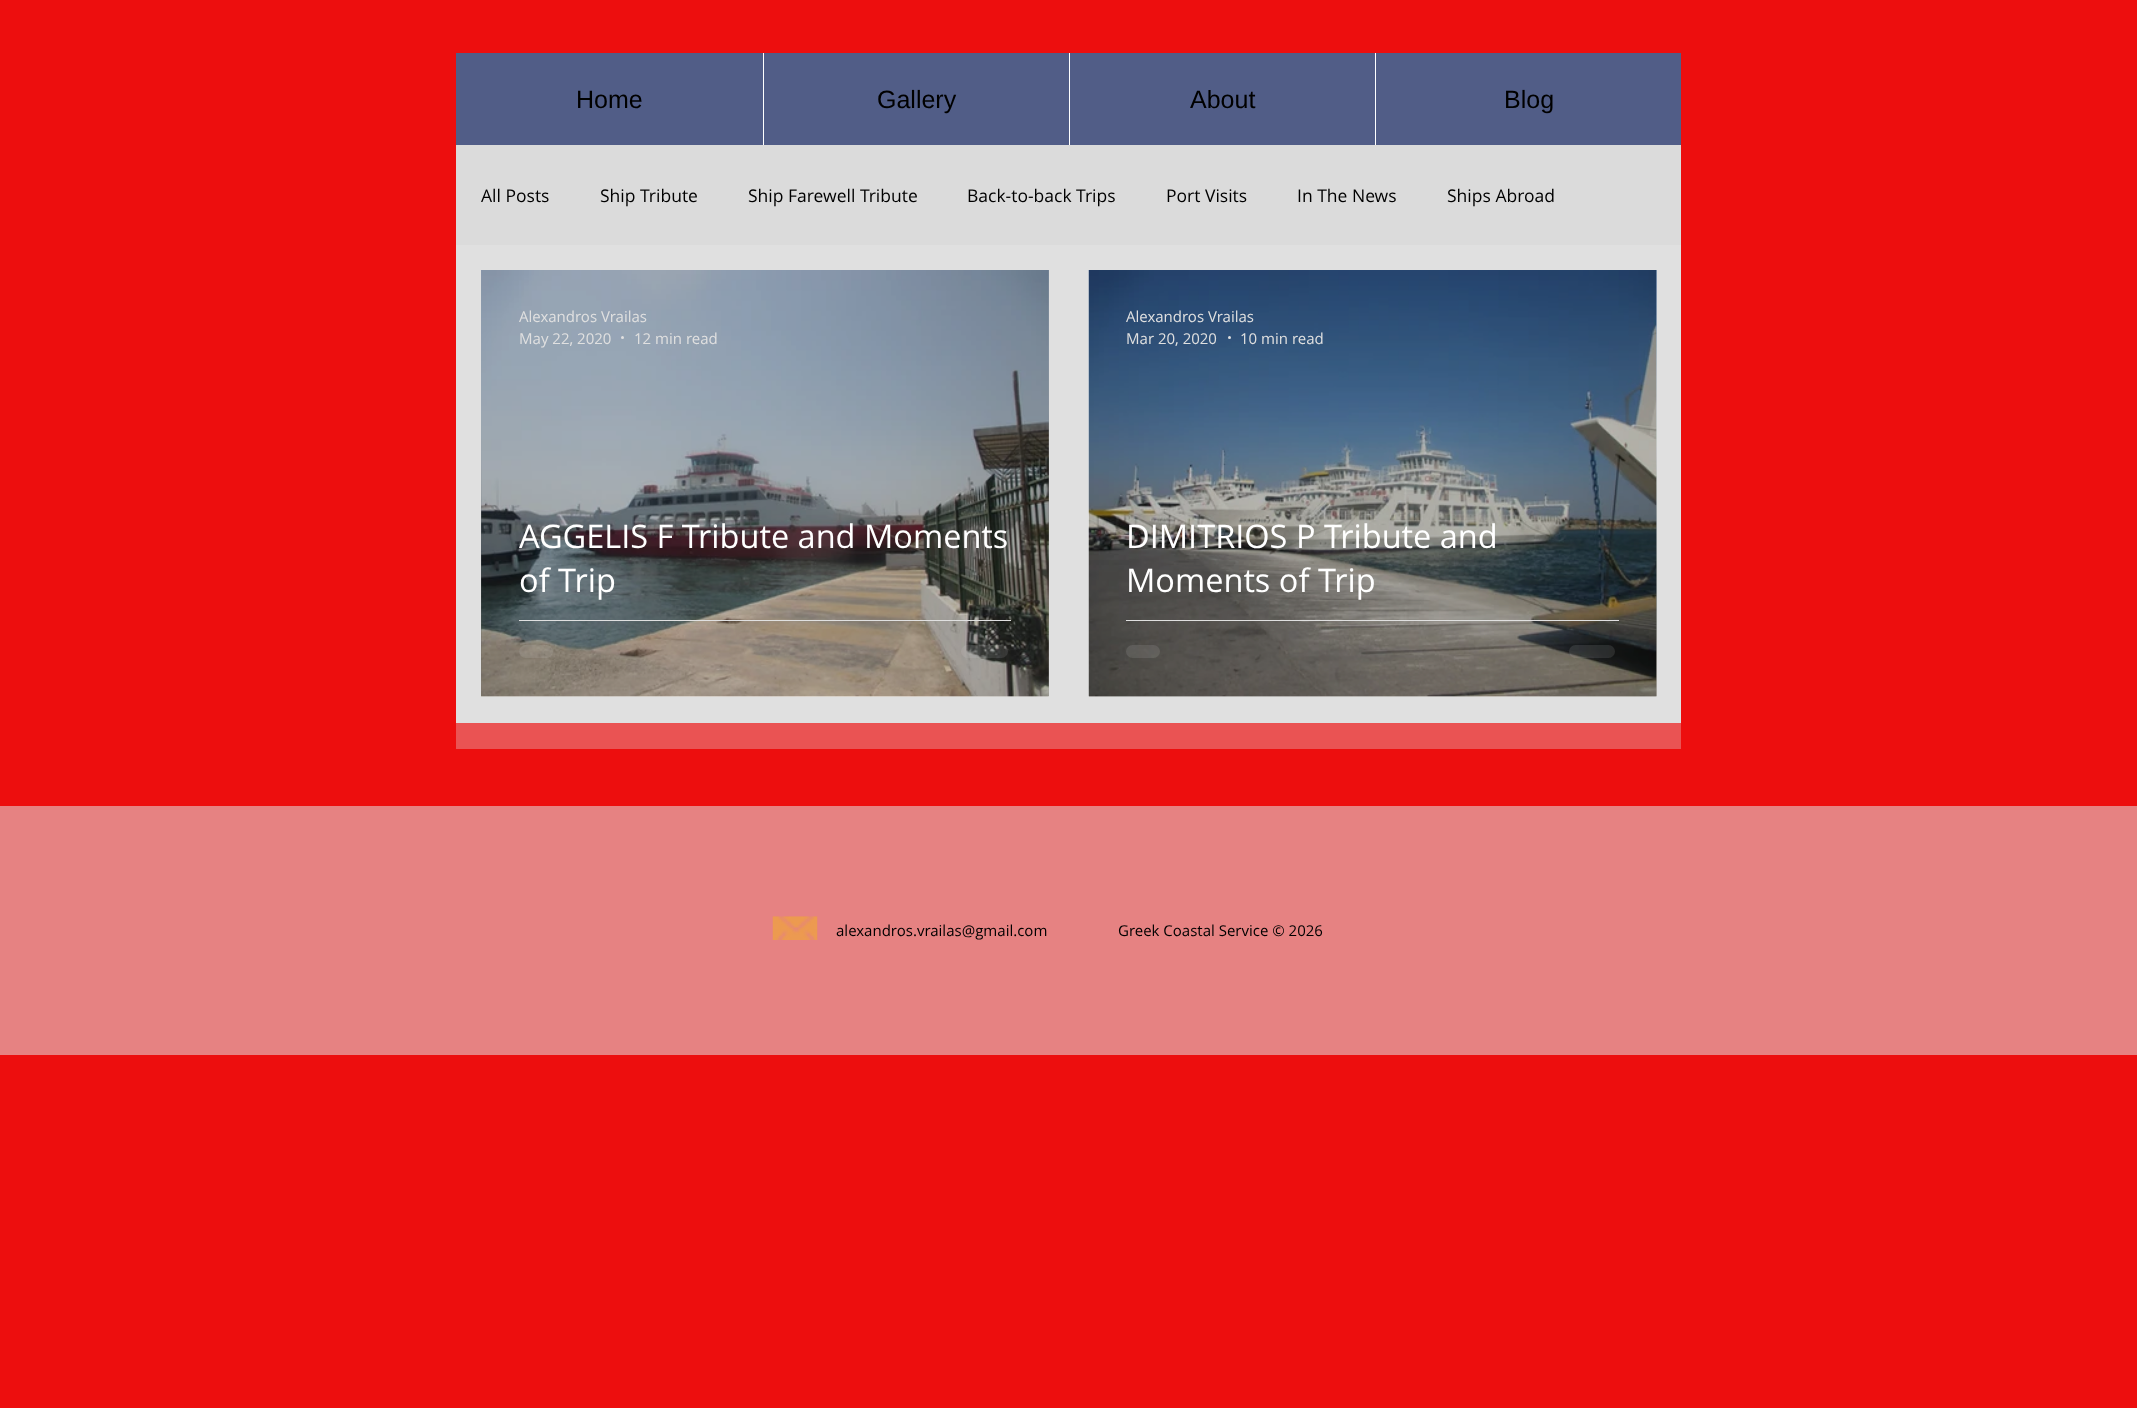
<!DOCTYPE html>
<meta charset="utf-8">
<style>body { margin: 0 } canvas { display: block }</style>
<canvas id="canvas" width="2137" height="1408"></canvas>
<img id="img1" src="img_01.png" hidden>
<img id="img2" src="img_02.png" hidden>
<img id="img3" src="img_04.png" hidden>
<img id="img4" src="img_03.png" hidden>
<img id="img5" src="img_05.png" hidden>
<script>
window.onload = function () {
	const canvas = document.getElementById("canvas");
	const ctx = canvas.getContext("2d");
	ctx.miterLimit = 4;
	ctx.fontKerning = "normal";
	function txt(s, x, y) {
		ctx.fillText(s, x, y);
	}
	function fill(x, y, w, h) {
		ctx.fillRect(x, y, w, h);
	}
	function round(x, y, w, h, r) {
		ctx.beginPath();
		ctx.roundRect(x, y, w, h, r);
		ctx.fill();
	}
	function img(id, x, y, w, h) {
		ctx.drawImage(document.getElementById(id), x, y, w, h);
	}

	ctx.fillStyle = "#ED0E0E";
	fill(0, 0, 2137, 1408);
	ctx.fillStyle = "#515D87";
	fill(456, 53, 1225, 92);
	ctx.fillStyle = "#FFFFFF";
	fill(763, 53, 1, 92);
	fill(1069, 53, 1, 92);
	fill(1375, 53, 1, 92);
	ctx.fillStyle = "#E0E0E0";
	fill(456, 245, 1225, 478);
	ctx.fillStyle = "#DBDBDB";
	fill(456, 145, 1225, 100);
	img("img1", 481, 270, 568, 427);
	img("img2", 481, 270, 568, 427);
	ctx.fillStyle = "#E0E0E0";
	ctx.beginPath();
	ctx.arc(622.5, 337.5, 1.5, 0, Math.PI * 2);
	ctx.fill();
	fill(519, 620, 492, 1);
	ctx.fillStyle = "rgba(224, 224, 224, 0.12)";
	round(519, 645, 34, 13, 6.5);
	round(961, 645, 47, 13, 6.5);
	img("img3", 1089, 270, 568, 427);
	img("img4", 1088, 270, 569, 427);
	ctx.fillStyle = "#E0E0E0";
	ctx.beginPath();
	ctx.arc(1229.5, 337.5, 1.5, 0, Math.PI * 2);
	ctx.fill();
	fill(1126, 620, 493, 1);
	ctx.fillStyle = "rgba(224, 224, 224, 0.12)";
	round(1126, 645, 34, 13, 6.5);
	round(1569, 645, 46, 13, 6.5);
	ctx.fillStyle = "#EA5353";
	fill(456, 723, 1225, 26);
	ctx.fillStyle = "#E68282";
	fill(0, 806, 2137, 249);
	img("img5", 772, 916, 46, 24);
	ctx.font = "25px Liberation Sans";
	ctx.fillStyle = "#000000";
	txt("Home", 576, 108);
	txt("Gallery", 877, 108);
	txt("About", 1190, 108);
	txt("Blog", 1504, 108);
	ctx.font = "17.5px Open Sans";
	txt("All Posts", 481, 202);
	txt("Ship Tribute", 600, 202);
	txt("Ship Farewell Tribute", 748, 202);
	txt("Back-to-back Trips", 967, 202);
	txt("Port Visits", 1166, 202);
	txt("In The News", 1297, 202);
	txt("Ships Abroad", 1447, 202);
	ctx.font = "15px Open Sans";
	ctx.fillStyle = "#E0E0E0";
	txt("Alexandros Vrailas", 519, 322);
	txt("May 22, 2020", 519, 344);
	txt("12 min read", 634, 344);
	ctx.font = "32.5px Open Sans";
	ctx.fillStyle = "#FFFFFF";
	txt("AGGELIS F Tribute and Moments", 519, 548);
	txt("of Trip", 519, 592);
	ctx.font = "15px Open Sans";
	ctx.fillStyle = "#E0E0E0";
	txt("Alexandros Vrailas", 1126, 322);
	txt("Mar 20, 2020", 1126, 344);
	txt("10 min read", 1240, 344);
	ctx.font = "32.5px Open Sans";
	ctx.fillStyle = "#FFFFFF";
	txt("DIMITRIOS P Tribute and", 1126, 548);
	txt("Moments of Trip", 1126, 592);
	ctx.font = "15px Open Sans";
	ctx.fillStyle = "#000000";
	txt("alexandros.vrailas@gmail.com", 836, 936);
	txt("Greek Coastal Service © 2026", 1118, 936);
};
</script>
